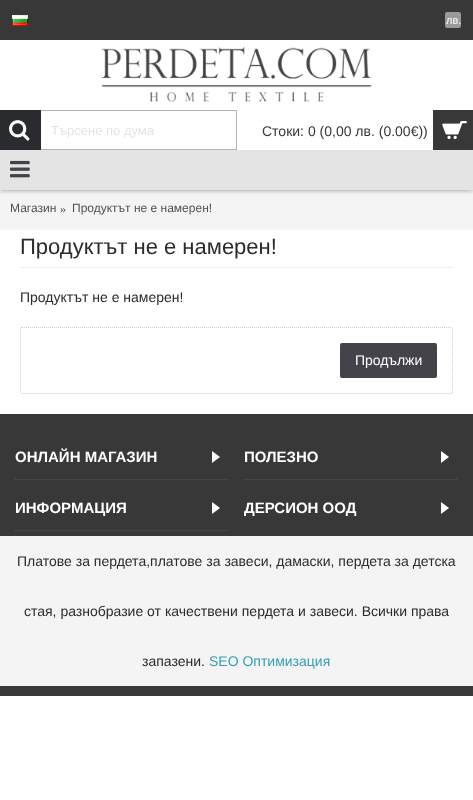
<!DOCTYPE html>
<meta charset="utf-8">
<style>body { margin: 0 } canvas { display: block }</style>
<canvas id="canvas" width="473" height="800"></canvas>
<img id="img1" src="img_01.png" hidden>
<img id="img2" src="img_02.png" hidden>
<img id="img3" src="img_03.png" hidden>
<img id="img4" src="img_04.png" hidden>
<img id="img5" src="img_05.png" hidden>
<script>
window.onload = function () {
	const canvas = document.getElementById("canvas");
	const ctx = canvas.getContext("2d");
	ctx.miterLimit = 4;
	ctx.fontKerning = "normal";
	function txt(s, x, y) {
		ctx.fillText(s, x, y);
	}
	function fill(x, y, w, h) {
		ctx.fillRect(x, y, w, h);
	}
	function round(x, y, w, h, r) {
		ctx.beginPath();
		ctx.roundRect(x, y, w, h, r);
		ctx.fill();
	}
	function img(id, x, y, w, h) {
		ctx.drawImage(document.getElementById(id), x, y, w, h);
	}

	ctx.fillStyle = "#FFFFFF";
	fill(0, 0, 473, 800);
	ctx.fillStyle = "#F4F4F4";
	fill(0, 190, 473, 40);
	ctx.save();
	ctx.beginPath();
	ctx.rect(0, 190, 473, 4);
	ctx.clip();
	ctx.fillStyle = "rgba(0, 0, 0, 0.4)";
	ctx.filter = "blur(2.5px)";
	ctx.beginPath();
	ctx.rect(0, 0, 473, 190);
	ctx.fill();
	ctx.filter = "none";
	ctx.restore();
	ctx.fillStyle = "#383838";
	fill(0, 0, 473, 40);
	img("img1", 12, 15, 16, 11);
	ctx.fillStyle = "#999999";
	round(445, 12, 16, 16, 2);
	img("img2", 101, 47, 271, 55);
	ctx.strokeStyle = "#A9B8C0";
	ctx.strokeRect(0.5, 110.5, 236, 39);
	ctx.fillStyle = "#2A2B2E";
	fill(0, 110, 41, 40);
	img("img3", 9, 120, 21, 21);
	ctx.fillStyle = "#383838";
	fill(433, 110, 40, 40);
	img("img4", 442, 121, 25, 18);
	ctx.fillStyle = "#E4E4E4";
	fill(0, 150, 473, 40);
	img("img5", 10, 160, 20, 18);
	ctx.fillStyle = "#EEEEEE";
	fill(20, 267, 433, 1);
	ctx.beginPath();
	ctx.moveTo(22, 327.5);
	ctx.lineTo(451, 327.5);
	ctx.bezierCurveTo(452, 327.5, 452.5, 328, 452.5, 329);
	ctx.lineTo(452.5, 392);
	ctx.bezierCurveTo(452.5, 393, 452, 393.5, 451, 393.5);
	ctx.lineTo(22, 393.5);
	ctx.bezierCurveTo(21, 393.5, 20.5, 393, 20.5, 392);
	ctx.lineTo(20.5, 329);
	ctx.bezierCurveTo(20.5, 328, 21, 327.5, 22, 327.5);
	ctx.closePath();
	ctx.strokeStyle = "#CCCCCC";
	ctx.setLineDash([1, 1]);
	ctx.stroke();
	ctx.fillStyle = "#444349";
	round(340, 343, 97, 35, 2);
	ctx.fillStyle = "#383838";
	fill(0, 414, 473, 282);
	ctx.beginPath();
	ctx.moveTo(15, 479.5);
	ctx.lineTo(229, 479.5);
	ctx.strokeStyle = "#505050";
	ctx.stroke();
	ctx.fillStyle = "#FFFFFF";
	ctx.beginPath();
	ctx.moveTo(212, 451);
	ctx.lineTo(212, 463);
	ctx.lineTo(220, 457);
	ctx.closePath();
	ctx.fill();
	ctx.beginPath();
	ctx.moveTo(244, 479.5);
	ctx.lineTo(458, 479.5);
	ctx.stroke();
	ctx.beginPath();
	ctx.moveTo(441, 451);
	ctx.lineTo(441, 463);
	ctx.lineTo(449, 457);
	ctx.closePath();
	ctx.fill();
	ctx.beginPath();
	ctx.moveTo(15, 530.5);
	ctx.lineTo(229, 530.5);
	ctx.stroke();
	ctx.beginPath();
	ctx.moveTo(212, 502);
	ctx.lineTo(212, 514);
	ctx.lineTo(220, 508);
	ctx.closePath();
	ctx.fill();
	ctx.beginPath();
	ctx.moveTo(441, 502);
	ctx.lineTo(441, 514);
	ctx.lineTo(449, 508);
	ctx.closePath();
	ctx.fill();
	ctx.fillStyle = "#F4F4F4";
	fill(0, 536, 473, 150);
	ctx.font = "11px Liberation Sans";
	ctx.fillStyle = "#FFFFFF";
	txt("лв.", 446, 24);
	ctx.font = "13px Liberation Sans";
	ctx.fillStyle = "#E4E4E4";
	txt("Търсене по дума", 51, 135);
	ctx.font = "14px Liberation Sans";
	ctx.fillStyle = "#383838";
	txt("Стоки: 0 (0,00 лв. (0.00€))", 262, 136);
	ctx.font = "12px Liberation Sans";
	ctx.fillStyle = "#505050";
	txt("Магазин", 10, 212);
	ctx.font = "12px Liberation Serif";
	txt("»", 60, 213);
	ctx.font = "12px Liberation Sans";
	txt("Продуктът не е намерен!", 72, 212);
	ctx.font = "22px Liberation Sans";
	ctx.fillStyle = "#2A2B2E";
	txt("Продуктът не е намерен!", 20, 254);
	ctx.font = "14px Liberation Sans";
	txt("Продуктът не е намерен!", 20, 302);
	ctx.fillStyle = "#FFFFFF";
	txt("Продължи", 355, 365);
	ctx.font = "bold 15px Liberation Sans";
	txt("ОНЛАЙН МАГАЗИН", 15, 462);
	txt("ПОЛЕЗНО", 244, 462);
	txt("ИНФОРМАЦИЯ", 15, 513);
	txt("ДЕРСИОН ООД", 244, 513);
	ctx.font = "14px Liberation Sans";
	ctx.fillStyle = "#2A2B2E";
	txt("Платове за пердета,платове за завеси, дамаски, пердета за детска", 17, 566);
	txt("стая, разнобразие от качествени пердета и завеси. Всички права", 24, 616);
	txt("запазени.", 142, 666);
	ctx.fillStyle = "#339DB9";
	txt("SEO Оптимизация", 209, 666);
};
</script>
